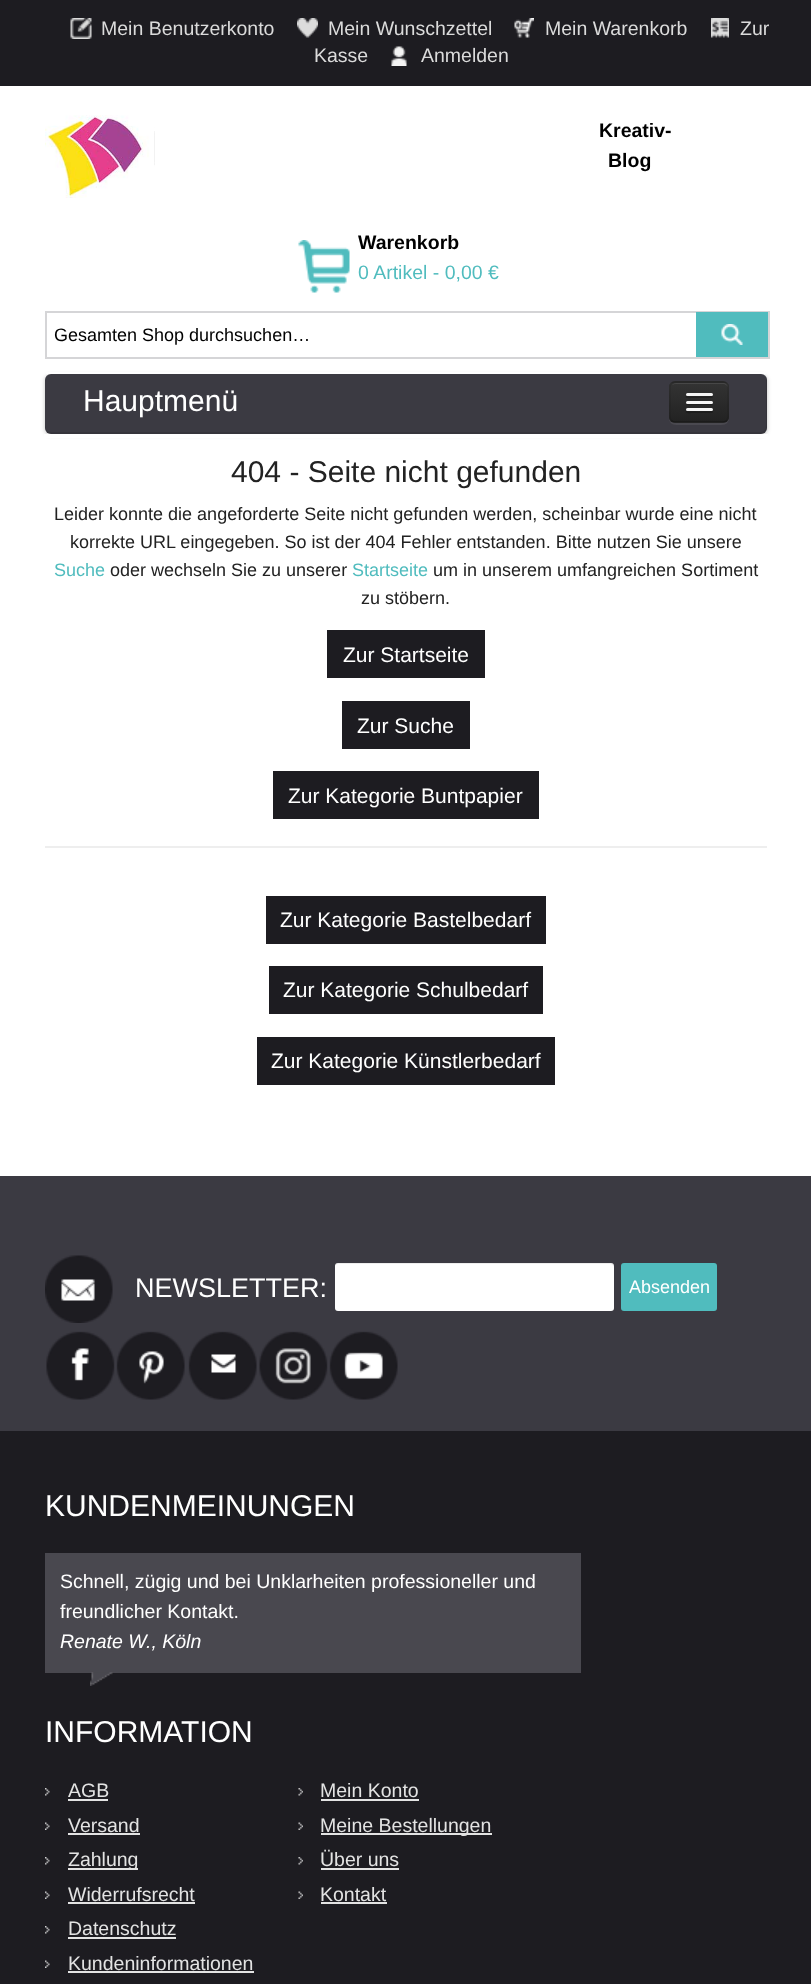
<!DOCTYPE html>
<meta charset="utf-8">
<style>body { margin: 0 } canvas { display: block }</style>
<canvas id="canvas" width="811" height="1984"></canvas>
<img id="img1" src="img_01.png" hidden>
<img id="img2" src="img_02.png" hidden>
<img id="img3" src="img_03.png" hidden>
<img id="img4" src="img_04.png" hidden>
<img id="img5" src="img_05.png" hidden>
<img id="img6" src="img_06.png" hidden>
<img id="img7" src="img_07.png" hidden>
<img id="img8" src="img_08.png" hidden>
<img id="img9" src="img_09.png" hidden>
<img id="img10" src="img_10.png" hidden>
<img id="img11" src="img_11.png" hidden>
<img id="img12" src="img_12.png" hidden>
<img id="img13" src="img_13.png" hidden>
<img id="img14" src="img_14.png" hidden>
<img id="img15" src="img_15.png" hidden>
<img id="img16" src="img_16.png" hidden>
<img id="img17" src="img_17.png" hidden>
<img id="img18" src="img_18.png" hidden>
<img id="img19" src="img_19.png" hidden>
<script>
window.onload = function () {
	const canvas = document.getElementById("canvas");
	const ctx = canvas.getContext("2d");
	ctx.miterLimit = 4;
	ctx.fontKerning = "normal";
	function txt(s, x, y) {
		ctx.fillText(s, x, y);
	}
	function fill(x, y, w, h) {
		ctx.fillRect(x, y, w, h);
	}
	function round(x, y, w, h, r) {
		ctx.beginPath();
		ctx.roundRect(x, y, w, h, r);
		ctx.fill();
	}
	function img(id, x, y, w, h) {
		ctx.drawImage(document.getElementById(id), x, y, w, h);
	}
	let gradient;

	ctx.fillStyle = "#FFFFFF";
	fill(0, 0, 811, 1984);
	ctx.fillStyle = "#1D1C21";
	fill(0, 0, 811, 86);
	img("img1", 70, 18, 22, 21);
	img("img2", 297, 18, 21, 20);
	img("img3", 514, 18, 20, 20);
	img("img4", 711, 18, 18, 20);
	img("img5", 391, 46, 16, 20);
	ctx.fillStyle = "rgba(0, 0, 0, 0.25)";
	ctx.filter = "blur(2px)";
	ctx.beginPath();
	ctx.roundRect(45, 375, 722, 60, 6);
	ctx.fill();
	ctx.filter = "none";
	ctx.fillStyle = "#FFFFFF";
	fill(46, 372, 720, 2);
	img("img6", 45, 115, 110, 83);
	img("img7", 298, 240, 52, 53);
	ctx.strokeStyle = "#D5D5D7";
	ctx.lineWidth = 2;
	ctx.strokeRect(46, 312, 723, 46);
	ctx.fillStyle = "#50BCBE";
	fill(696, 312, 72, 45);
	img("img8", 721, 324, 22, 21);
	ctx.fillStyle = "#3B3A42";
	round(45, 374, 722, 60, 6);
	ctx.fillStyle = "rgba(0, 0, 0, 0.1)";
	ctx.beginPath();
	ctx.moveTo(45, 426);
	ctx.lineTo(45, 428);
	ctx.bezierCurveTo(45, 431, 48, 434, 51, 434);
	ctx.lineTo(761, 434);
	ctx.bezierCurveTo(764, 434, 767, 431, 767, 428);
	ctx.lineTo(767, 380);
	ctx.bezierCurveTo(767, 379, 767, 377, 766, 376);
	ctx.lineTo(766, 426);
	ctx.bezierCurveTo(766, 429, 764, 432, 760, 432);
	ctx.lineTo(51, 432);
	ctx.bezierCurveTo(48, 432, 45, 429, 45, 426);
	ctx.closePath();
	ctx.fill();
	ctx.fillStyle = "#4A4950";
	ctx.beginPath();
	ctx.moveTo(669, 417);
	ctx.bezierCurveTo(669, 426, 675, 425, 683, 425);
	ctx.lineTo(715, 425);
	ctx.bezierCurveTo(723, 425, 729, 426, 729, 417);
	ctx.bezierCurveTo(729, 420, 726, 423, 723, 423);
	ctx.lineTo(675, 423);
	ctx.bezierCurveTo(672, 423, 669, 420, 669, 417);
	ctx.closePath();
	ctx.fill();
	ctx.fillStyle = "#2C2C2C";
	round(669, 381, 60, 42, 6);
	ctx.save();
	ctx.beginPath();
	ctx.roundRect(669, 381, 60, 42, 6);
	ctx.clip();
	gradient = ctx.createLinearGradient(699, 383, 699, 422);
	gradient.addColorStop(0, "#333333");
	gradient.addColorStop(1, "#222222");
	ctx.fillStyle = gradient;
	fill(669, 383, 60, 39);
	ctx.restore();
	ctx.fillStyle = "#474747";
	ctx.beginPath();
	ctx.moveTo(675, 384);
	ctx.lineTo(723, 384);
	ctx.bezierCurveTo(725, 384, 728, 386, 728, 388);
	ctx.bezierCurveTo(728, 385, 726, 383, 723, 383);
	ctx.lineTo(676, 383);
	ctx.bezierCurveTo(674, 383, 673, 384, 672, 385);
	ctx.closePath();
	ctx.fill();
	ctx.beginPath();
	ctx.moveTo(726.5, 420.5);
	ctx.bezierCurveTo(725.5, 421.5, 724.5, 422, 723, 422);
	ctx.lineTo(675, 422);
	ctx.bezierCurveTo(673.5, 422, 672.5, 421.5, 671.5, 420.5);
	ctx.strokeStyle = "rgba(0, 0, 0, 0.25)";
	ctx.lineWidth = 1.5;
	ctx.stroke();
	ctx.beginPath();
	ctx.moveTo(671.5, 420.5);
	ctx.bezierCurveTo(670.5, 419.5, 670, 418.5, 670, 417);
	ctx.lineTo(670, 387);
	ctx.bezierCurveTo(670, 385.5, 670.5, 384.5, 671.5, 383.5);
	ctx.bezierCurveTo(672.5, 382.5, 673.5, 382, 675, 382);
	ctx.lineTo(723, 382);
	ctx.bezierCurveTo(724.5, 382, 725.5, 382.5, 726.5, 383.5);
	ctx.bezierCurveTo(727.5, 384.5, 728, 385.5, 728, 387);
	ctx.lineTo(728, 417);
	ctx.bezierCurveTo(728, 418.5, 727.5, 419.5, 726.5, 420.5);
	ctx.strokeStyle = "rgba(0, 0, 0, 0.1)";
	ctx.stroke();
	ctx.fillStyle = "#222222";
	ctx.beginPath();
	ctx.moveTo(686, 396);
	ctx.bezierCurveTo(684.5, 399, 691.5, 398, 691.5, 398);
	ctx.lineTo(712, 398);
	ctx.bezierCurveTo(713, 397.5, 713.5, 396, 712.5, 395);
	ctx.lineTo(711, 396);
	ctx.bezierCurveTo(709, 396.5, 687, 396.5, 686, 396);
	ctx.closePath();
	ctx.fill();
	ctx.fillStyle = "#F5F5F5";
	round(686, 393, 27, 3, 1.5);
	ctx.fillStyle = "#202020";
	ctx.beginPath();
	ctx.moveTo(686, 403);
	ctx.bezierCurveTo(685.5, 406, 691, 405, 691.5, 405);
	ctx.lineTo(711.5, 405);
	ctx.bezierCurveTo(713, 405, 713.5, 403, 712.5, 402.5);
	ctx.lineTo(711.5, 403.5);
	ctx.bezierCurveTo(710, 404, 686.5, 403.5, 686, 403);
	ctx.closePath();
	ctx.fill();
	ctx.fillStyle = "#F5F5F5";
	round(686, 401, 27, 3, 1.5);
	ctx.fillStyle = "#1D1D1D";
	ctx.beginPath();
	ctx.moveTo(686, 411);
	ctx.bezierCurveTo(684.5, 414, 691.5, 413, 691.5, 413);
	ctx.lineTo(712, 413);
	ctx.bezierCurveTo(713, 412.5, 713.5, 411, 712.5, 410);
	ctx.lineTo(711, 411);
	ctx.bezierCurveTo(709, 411.5, 687, 411.5, 686, 411);
	ctx.closePath();
	ctx.fill();
	ctx.fillStyle = "#F5F5F5";
	round(686, 408, 27, 3, 1.5);
	ctx.fillStyle = "#FFFFFF";
	fill(44, 434, 724, 4);
	ctx.fillStyle = "#1D1C21";
	fill(327, 630, 158, 48);
	fill(342, 701, 128, 48);
	fill(273, 771, 266, 48);
	ctx.fillStyle = "#EEEEEE";
	fill(45, 846, 722, 2);
	ctx.fillStyle = "#1D1C21";
	fill(266, 896, 280, 48);
	fill(269, 966, 274, 48);
	fill(257, 1037, 298, 48);
	ctx.fillStyle = "#3B3A42";
	fill(0, 1176, 811, 255);
	img("img9", 45, 1255, 68, 68);
	ctx.fillStyle = "#FFFFFF";
	round(335, 1263, 279, 48, 3);
	ctx.fillStyle = "rgba(0, 0, 0, 0.07)";
	ctx.beginPath();
	ctx.moveTo(338, 1264);
	ctx.lineTo(610, 1264);
	ctx.bezierCurveTo(612, 1264, 614, 1266, 614, 1268);
	ctx.lineTo(614, 1266);
	ctx.bezierCurveTo(614, 1264, 613, 1263, 611, 1263);
	ctx.lineTo(338, 1263);
	ctx.bezierCurveTo(337, 1263, 335, 1264, 335, 1265);
	ctx.closePath();
	ctx.fill();
	ctx.fillStyle = "#50BCBE";
	round(621, 1263, 96, 48, 3);
	img("img10", 46, 1331, 69, 69);
	img("img11", 116, 1331, 69, 69);
	img("img12", 188, 1331, 69, 69);
	img("img13", 259, 1331, 69, 69);
	img("img14", 329, 1331, 69, 69);
	ctx.fillStyle = "#1D1C21";
	fill(0, 1431, 811, 553);
	ctx.fillStyle = "#49484F";
	fill(45, 1553, 536, 120);
	img("img15", 90, 1672, 23, 14);
	img("img16", 45, 1788, 5, 8);
	ctx.fillStyle = "#E3E3E3";
	fill(68, 1799, 40, 2);
	img("img17", 45, 1822, 5, 8);
	fill(68, 1833, 72, 2);
	img("img16", 45, 1857, 5, 8);
	fill(68, 1868, 70, 2);
	img("img17", 45, 1891, 5, 8);
	fill(68, 1902, 127, 2);
	img("img16", 45, 1926, 5, 8);
	fill(68, 1937, 108, 2);
	img("img17", 45, 1960, 5, 8);
	fill(68, 1971, 186, 2);
	img("img18", 298, 1788, 5, 8);
	fill(321, 1799, 98, 2);
	img("img19", 298, 1822, 5, 8);
	fill(321, 1833, 171, 2);
	img("img18", 298, 1857, 5, 8);
	fill(321, 1868, 78, 2);
	img("img19", 298, 1891, 5, 8);
	fill(321, 1902, 66, 2);
	ctx.font = "19.5px Liberation Sans";
	ctx.fillStyle = "#DBDBDB";
	txt("Mein Benutzerkonto", 101, 35);
	txt("Mein Wunschzettel", 328, 35);
	txt("Mein Warenkorb", 545, 35);
	txt("Zur", 740, 35);
	txt("Kasse", 314, 62);
	txt("Anmelden", 421, 62);
	ctx.font = "bold 19.5px Liberation Sans";
	ctx.fillStyle = "#000000";
	txt("Kreativ-", 599, 137);
	txt("Blog", 608, 167);
	txt("Warenkorb", 358, 249);
	ctx.font = "19.5px Liberation Sans";
	ctx.fillStyle = "#50BCBE";
	txt("0 Artikel - 0,00 €", 358, 279);
	ctx.font = "18px Liberation Sans";
	ctx.fillStyle = "#000000";
	txt("Gesamten Shop durchsuchen…", 54, 341);
	ctx.font = "30px Liberation Sans";
	ctx.fillStyle = "#FFFFFF";
	txt("Hauptmenü", 83, 411);
	ctx.fillStyle = "#222222";
	txt("404 - Seite nicht gefunden", 231, 482);
	ctx.font = "18px Liberation Sans";
	txt("Leider konnte die angeforderte Seite nicht gefunden werden, scheinbar wurde eine nicht", 54, 520);
	txt("korrekte URL eingegeben. So ist der 404 Fehler entstanden. Bitte nutzen Sie unsere", 70, 548);
	ctx.fillStyle = "#50BCBE";
	txt("Suche", 54, 576);
	ctx.fillStyle = "#222222";
	txt("oder wechseln Sie zu unserer", 110, 576);
	ctx.fillStyle = "#50BCBE";
	txt("Startseite", 352, 576);
	ctx.fillStyle = "#222222";
	txt("um in unserem umfangreichen Sortiment", 433, 576);
	txt("zu stöbern.", 361, 604);
	ctx.font = "21px Liberation Sans";
	ctx.fillStyle = "#FFFFFF";
	txt("Zur Startseite", 343, 662);
	txt("Zur Suche", 357, 733);
	txt("Zur Kategorie Buntpapier", 288, 803);
	txt("Zur Kategorie Bastelbedarf", 280, 927);
	txt("Zur Kategorie Schulbedarf", 283, 997);
	txt("Zur Kategorie Künstlerbedarf", 271, 1068);
	ctx.font = "27px Liberation Sans";
	txt("NEWSLETTER:", 135, 1297);
	ctx.font = "18px Liberation Sans";
	txt("Absenden", 629, 1293);
	ctx.font = "30px Liberation Sans";
	txt("KUNDENMEINUNGEN", 45, 1516);
	ctx.font = "19.5px Liberation Sans";
	txt("Schnell, zügig und bei Unklarheiten professioneller und", 60, 1588);
	txt("freundlicher Kontakt.", 60, 1618);
	ctx.font = "italic 19.5px Liberation Sans";
	txt("Renate W., Köln", 60, 1648);
	ctx.font = "30px Liberation Sans";
	txt("INFORMATION", 45, 1742);
	ctx.font = "19.5px Liberation Sans";
	ctx.fillStyle = "#E3E3E3";
	txt("AGB", 68, 1797);
	txt("Versand", 68, 1832);
	txt("Zahlung", 68, 1866);
	txt("Widerrufsrecht", 68, 1901);
	txt("Datenschutz", 68, 1935);
	txt("Kundeninformationen", 68, 1970);
	txt("Mein Konto", 320, 1797);
	txt("Meine Bestellungen", 320, 1832);
	txt("Über uns", 320, 1866);
	txt("Kontakt", 320, 1901);
};
</script>
